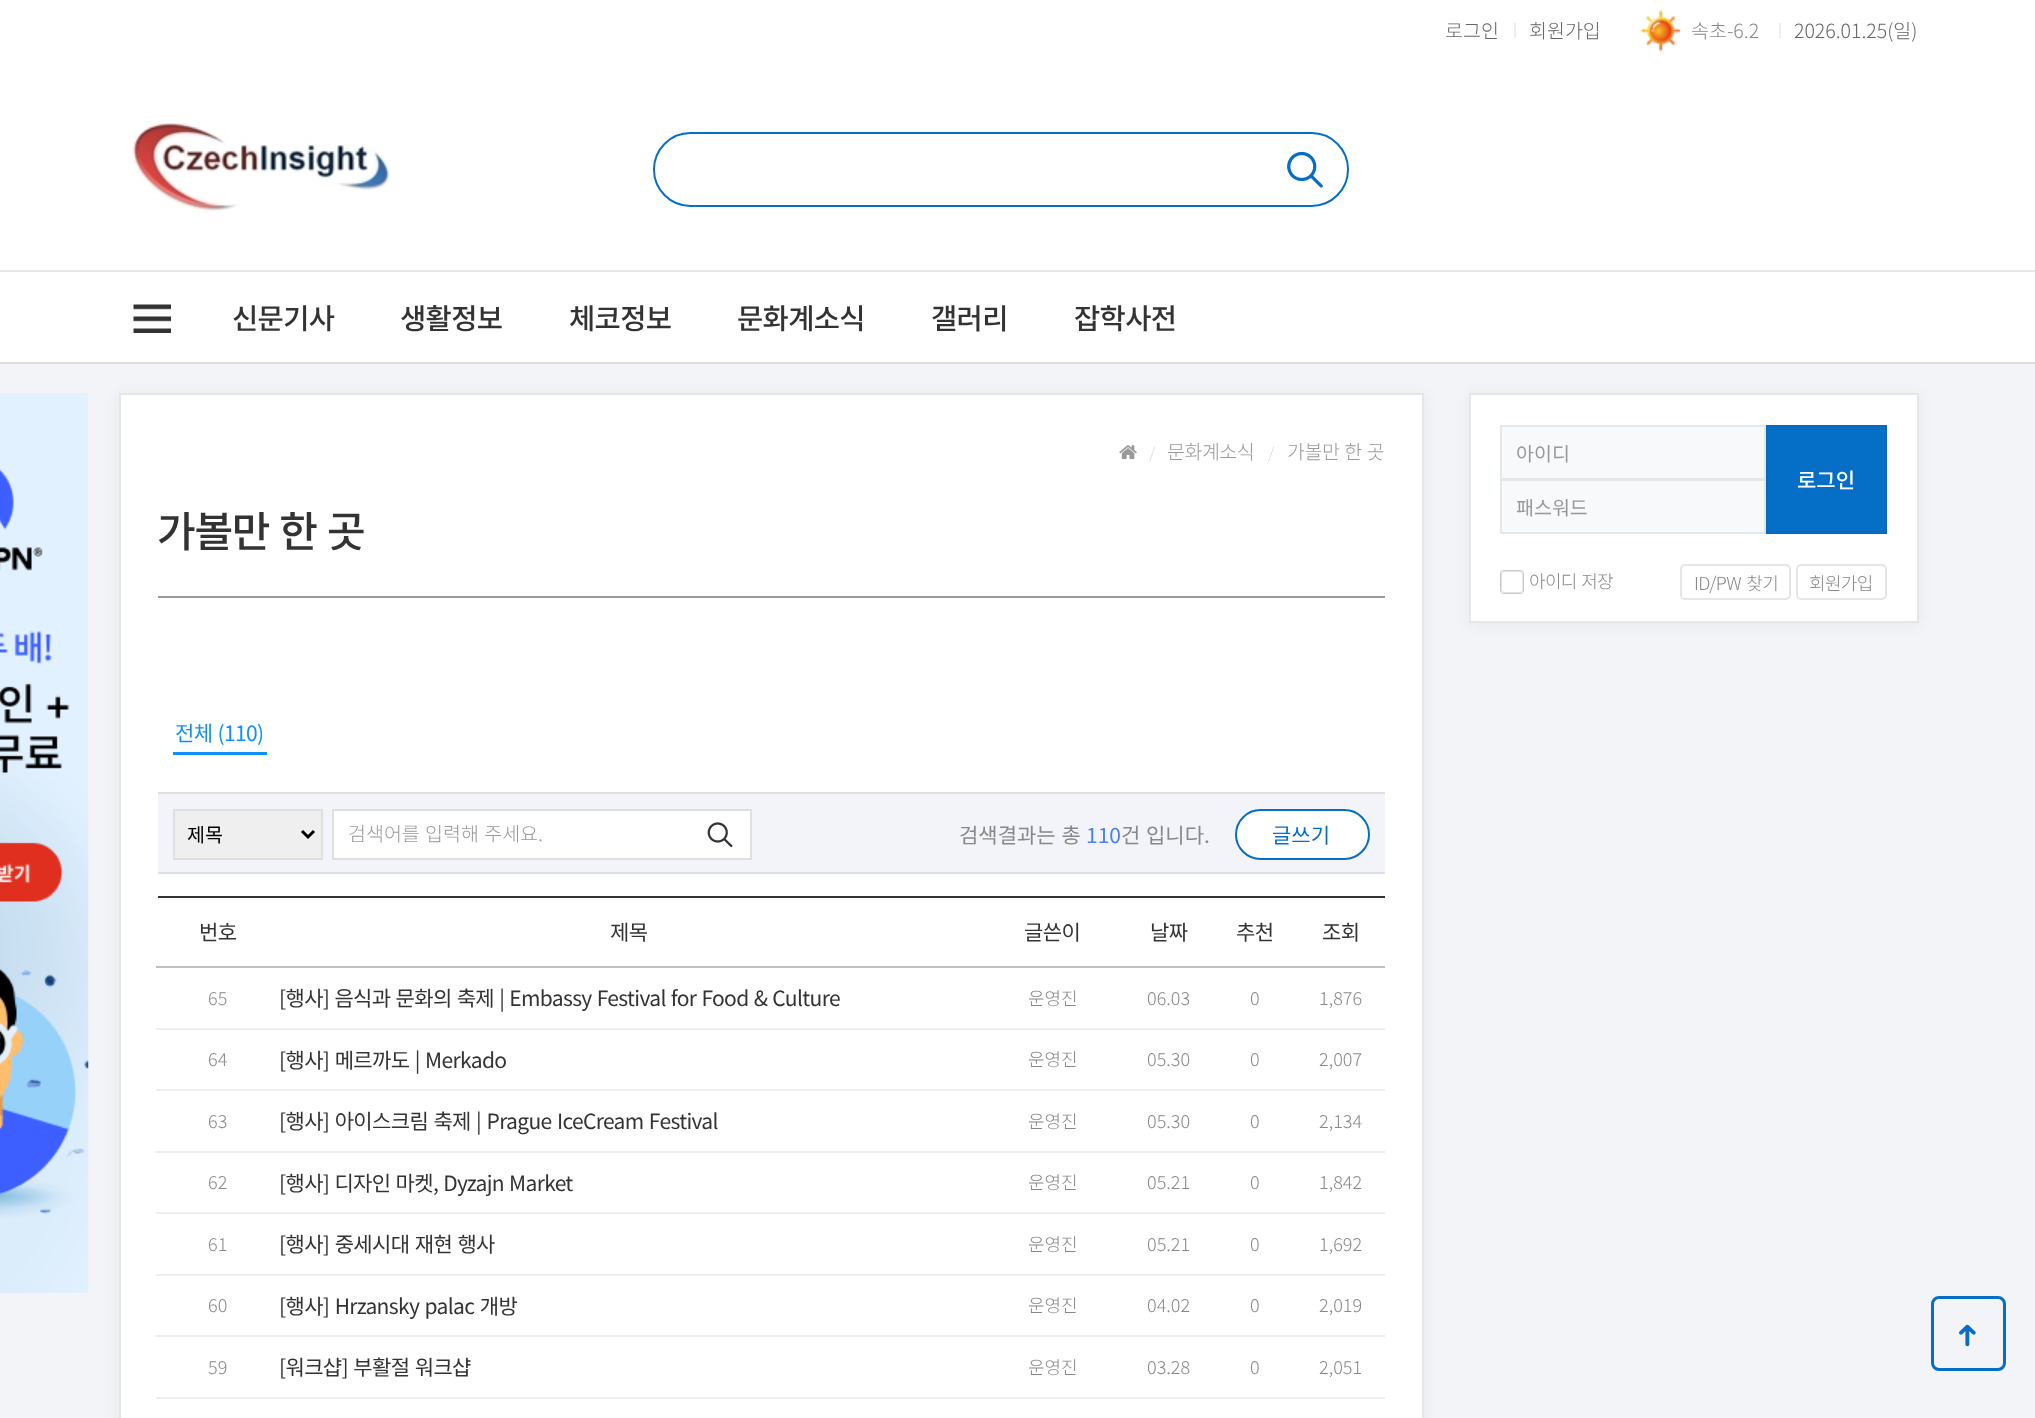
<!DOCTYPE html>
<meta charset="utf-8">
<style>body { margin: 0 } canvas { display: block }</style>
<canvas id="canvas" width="2035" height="1418"></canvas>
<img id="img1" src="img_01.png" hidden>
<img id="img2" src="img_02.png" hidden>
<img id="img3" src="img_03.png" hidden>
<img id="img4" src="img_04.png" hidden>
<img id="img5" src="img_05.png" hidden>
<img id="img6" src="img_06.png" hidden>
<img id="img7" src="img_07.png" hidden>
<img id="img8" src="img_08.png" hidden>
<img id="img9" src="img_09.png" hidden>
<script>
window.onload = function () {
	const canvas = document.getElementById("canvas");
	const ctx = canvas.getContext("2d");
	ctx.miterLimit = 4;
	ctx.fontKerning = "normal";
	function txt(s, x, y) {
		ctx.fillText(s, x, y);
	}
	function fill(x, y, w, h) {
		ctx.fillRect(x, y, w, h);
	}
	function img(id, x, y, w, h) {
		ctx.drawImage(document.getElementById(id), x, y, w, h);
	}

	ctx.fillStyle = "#FFFFFF";
	fill(0, 0, 2035, 1418);
	ctx.fillStyle = "#DEDEDE";
	fill(0, 362, 2035, 2);
	ctx.fillStyle = "#EEEEEE";
	fill(1514, 23, 2, 15);
	img("img1", 1640, 10, 41, 42);
	fill(1779, 23, 2, 15);
	ctx.fillStyle = "#E5E5E5";
	fill(0, 270, 2035, 2);
	img("img2", 132, 123, 259, 89);
	ctx.beginPath();
	ctx.roundRect(654, 133, 694, 73, 36.5);
	ctx.strokeStyle = "#056EC7";
	ctx.lineWidth = 2;
	ctx.stroke();
	img("img3", 1287, 151, 36, 37);
	img("img4", 133, 304, 38, 29);
	ctx.fillStyle = "#F2F4F7";
	fill(0, 364, 2035, 1054);
	img("img5", 0, 393, 89, 900);
	ctx.fillStyle = "rgba(0, 0, 0, 0.05)";
	ctx.filter = "blur(7.5px)";
	ctx.beginPath();
	ctx.rect(119, 395, 1305, 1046);
	ctx.fill();
	ctx.filter = "none";
	ctx.fillStyle = "#FFFFFF";
	ctx.beginPath();
	ctx.rect(120, 394, 1303, 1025);
	ctx.fill();
	ctx.strokeStyle = "#E6E6E6";
	ctx.stroke();
	img("img6", 1119, 445, 18, 15);
	ctx.fillStyle = "#999999";
	fill(158, 596, 1227, 2);
	ctx.fillStyle = "#1090FD";
	fill(173, 752, 94, 3);
	ctx.fillStyle = "#F2F4F9";
	fill(158, 794, 1227, 78);
	ctx.fillStyle = "#DFDFDF";
	fill(158, 792, 1227, 2);
	fill(158, 872, 1227, 2);
	ctx.fillStyle = "#EFEFEF";
	ctx.beginPath();
	ctx.rect(174, 810, 148, 49);
	ctx.fill();
	ctx.strokeStyle = "#DFDFDF";
	ctx.stroke();
	ctx.beginPath();
	ctx.moveTo(302, 831);
	ctx.lineTo(308, 837);
	ctx.lineTo(314, 831);
	ctx.strokeStyle = "#000000";
	ctx.lineWidth = 3;
	ctx.stroke();
	ctx.fillStyle = "#FFFFFF";
	ctx.beginPath();
	ctx.rect(333, 810, 418, 49);
	ctx.fill();
	ctx.strokeStyle = "#DFDFDF";
	ctx.lineWidth = 2;
	ctx.stroke();
	img("img7", 707, 822, 26, 26);
	ctx.beginPath();
	ctx.roundRect(1236, 810, 133, 49, 24.5);
	ctx.fill();
	ctx.strokeStyle = "#056EC7";
	ctx.stroke();
	ctx.fillStyle = "#333333";
	fill(158, 896, 1227, 2);
	ctx.fillStyle = "#BFBFBF";
	fill(156, 966, 1229, 2);
	ctx.fillStyle = "#EEEEEE";
	fill(156, 1028, 1229, 2);
	fill(156, 1089, 1229, 2);
	fill(156, 1151, 1229, 2);
	fill(156, 1212, 1229, 2);
	fill(156, 1274, 1229, 2);
	fill(156, 1335, 1229, 2);
	fill(156, 1397, 1229, 2);
	ctx.fillStyle = "rgba(0, 0, 0, 0.05)";
	ctx.filter = "blur(7.5px)";
	ctx.beginPath();
	ctx.rect(1469, 395, 450, 229);
	ctx.fill();
	ctx.filter = "none";
	ctx.fillStyle = "#FFFFFF";
	ctx.beginPath();
	ctx.rect(1470, 394, 448, 228);
	ctx.fill();
	ctx.strokeStyle = "#E6E6E6";
	ctx.stroke();
	ctx.fillStyle = "#F8F9FA";
	ctx.beginPath();
	ctx.rect(1501, 426, 264, 53);
	ctx.fill();
	ctx.strokeStyle = "#E4E8EB";
	ctx.stroke();
	ctx.beginPath();
	ctx.rect(1501, 480, 264, 53);
	ctx.fill();
	ctx.stroke();
	ctx.fillStyle = "#056EC7";
	ctx.beginPath();
	ctx.rect(1767, 426, 119, 107);
	ctx.fill();
	ctx.strokeStyle = "#056BC1";
	ctx.stroke();
	img("img8", 1500, 570, 24, 24);
	ctx.beginPath();
	ctx.roundRect(1681, 565, 109, 34, 4);
	ctx.strokeStyle = "#E5E5E5";
	ctx.stroke();
	ctx.beginPath();
	ctx.roundRect(1797, 565, 89, 34, 4);
	ctx.stroke();
	ctx.beginPath();
	ctx.roundRect(1932.5, 1297.5, 72, 72, 6.5);
	ctx.strokeStyle = "#056EC7";
	ctx.lineWidth = 3;
	ctx.stroke();
	img("img9", 1959, 1324, 17, 23);
	ctx.font = "300 19.5px Noto Sans KR";
	ctx.fillStyle = "#666666";
	txt("로그인", 1445, 38);
	txt("회원가입", 1529, 38);
	ctx.fillStyle = "#888888";
	txt("속초-6.2", 1691, 38);
	ctx.fillStyle = "#666666";
	txt("2026.01.25(일)", 1794, 38);
	ctx.letterSpacing = "-0.63px";
	ctx.font = "500 28.5px Noto Sans KR";
	ctx.fillStyle = "#333333";
	txt("신문기사", 232, 329);
	txt("생활정보", 400, 329);
	txt("체코정보", 569, 329);
	txt("문화계소식", 737, 329);
	txt("갤러리", 931, 329);
	txt("잡학사전", 1074, 329);
	ctx.letterSpacing = "-0.5px";
	ctx.font = "300 16px Noto Sans KR";
	ctx.fillStyle = "#D9D9D9";
	txt("/", 1149, 459);
	ctx.font = "300 19.5px Noto Sans KR";
	ctx.fillStyle = "#999999";
	txt("문화계소식", 1167, 459);
	ctx.font = "300 16px Noto Sans KR";
	ctx.fillStyle = "#D9D9D9";
	txt("/", 1268, 459);
	ctx.wordSpacing = "1px";
	ctx.font = "300 19.5px Noto Sans KR";
	ctx.fillStyle = "#999999";
	txt("가볼만 한 곳", 1287, 459);
	ctx.letterSpacing = "-1.25px";
	ctx.wordSpacing = "2px";
	ctx.font = "500 42px Noto Sans KR";
	ctx.fillStyle = "#333333";
	txt("가볼만 한 곳", 157, 547);
	ctx.letterSpacing = "-0.63px";
	ctx.wordSpacing = "1px";
	ctx.font = "21px Noto Sans KR";
	ctx.fillStyle = "#1090FD";
	txt("전체 (110)", 175, 741);
	ctx.letterSpacing = "0px";
	ctx.wordSpacing = "0px";
	ctx.font = "19.5px Noto Sans KR";
	ctx.fillStyle = "#000000";
	txt("제목", 187, 842);
	ctx.wordSpacing = "1px";
	ctx.font = "300 19.5px Noto Sans KR";
	ctx.fillStyle = "#999999";
	txt("검색어를 입력해 주세요.", 348, 841);
	ctx.wordSpacing = "1.25px";
	ctx.font = "21px Noto Sans KR";
	ctx.fillStyle = "#888888";
	txt("검색결과는 총", 959, 843);
	ctx.wordSpacing = "0px";
	ctx.fillStyle = "#4C80EC";
	txt("110", 1086, 843);
	ctx.wordSpacing = "1px";
	ctx.fillStyle = "#888888";
	txt("건 입니다.", 1121, 843);
	ctx.wordSpacing = "0px";
	ctx.fillStyle = "#056EC7";
	txt("글쓰기", 1272, 843);
	ctx.letterSpacing = "-0.63px";
	ctx.fillStyle = "#333333";
	txt("번호", 199, 940);
	txt("제목", 610, 940);
	txt("글쓴이", 1024, 940);
	txt("날짜", 1150, 940);
	txt("추천", 1236, 940);
	txt("조회", 1322, 940);
	ctx.letterSpacing = "0px";
	ctx.font = "300 18px Noto Sans KR";
	ctx.fillStyle = "#888888";
	txt("65", 208, 1005);
	ctx.letterSpacing = "-0.63px";
	ctx.wordSpacing = "1px";
	ctx.font = "21px Noto Sans KR";
	ctx.fillStyle = "#333333";
	txt("[행사] 음식과 문화의 축제 | Embassy Festival for Food & Culture", 279, 1006);
	ctx.letterSpacing = "0px";
	ctx.wordSpacing = "0px";
	ctx.font = "300 18px Noto Sans KR";
	ctx.fillStyle = "#888888";
	txt("운영진", 1028, 1005);
	txt("06.03", 1147, 1005);
	txt("0", 1250, 1005);
	txt("1,876", 1319, 1005);
	txt("64", 208, 1066);
	ctx.letterSpacing = "-0.63px";
	ctx.wordSpacing = "1.25px";
	ctx.font = "21px Noto Sans KR";
	ctx.fillStyle = "#333333";
	txt("[행사] 메르까도 | Merkado", 279, 1068);
	ctx.letterSpacing = "0px";
	ctx.wordSpacing = "0px";
	ctx.font = "300 18px Noto Sans KR";
	ctx.fillStyle = "#888888";
	txt("운영진", 1028, 1066);
	txt("05.30", 1147, 1066);
	txt("0", 1250, 1066);
	txt("2,007", 1319, 1066);
	txt("63", 208, 1128);
	ctx.letterSpacing = "-0.63px";
	ctx.wordSpacing = "1.25px";
	ctx.font = "21px Noto Sans KR";
	ctx.fillStyle = "#333333";
	txt("[행사] 아이스크림 축제 | Prague IceCream Festival", 279, 1129);
	ctx.letterSpacing = "0px";
	ctx.wordSpacing = "0px";
	ctx.font = "300 18px Noto Sans KR";
	ctx.fillStyle = "#888888";
	txt("운영진", 1028, 1128);
	txt("05.30", 1147, 1128);
	txt("0", 1250, 1128);
	txt("2,134", 1319, 1128);
	txt("62", 208, 1189);
	ctx.letterSpacing = "-0.63px";
	ctx.wordSpacing = "1px";
	ctx.font = "21px Noto Sans KR";
	ctx.fillStyle = "#333333";
	txt("[행사] 디자인 마켓, Dyzajn Market", 279, 1191);
	ctx.letterSpacing = "0px";
	ctx.wordSpacing = "0px";
	ctx.font = "300 18px Noto Sans KR";
	ctx.fillStyle = "#888888";
	txt("운영진", 1028, 1189);
	txt("05.21", 1147, 1189);
	txt("0", 1250, 1189);
	txt("1,842", 1319, 1189);
	txt("61", 208, 1251);
	ctx.letterSpacing = "-0.63px";
	ctx.wordSpacing = "1.25px";
	ctx.font = "21px Noto Sans KR";
	ctx.fillStyle = "#333333";
	txt("[행사] 중세시대 재현 행사", 279, 1252);
	ctx.letterSpacing = "0px";
	ctx.wordSpacing = "0px";
	ctx.font = "300 18px Noto Sans KR";
	ctx.fillStyle = "#888888";
	txt("운영진", 1028, 1251);
	txt("05.21", 1147, 1251);
	txt("0", 1250, 1251);
	txt("1,692", 1319, 1251);
	txt("60", 208, 1312);
	ctx.letterSpacing = "-0.63px";
	ctx.wordSpacing = "1.25px";
	ctx.font = "21px Noto Sans KR";
	ctx.fillStyle = "#333333";
	txt("[행사] Hrzansky palac 개방", 279, 1314);
	ctx.letterSpacing = "0px";
	ctx.wordSpacing = "0px";
	ctx.font = "300 18px Noto Sans KR";
	ctx.fillStyle = "#888888";
	txt("운영진", 1028, 1312);
	txt("04.02", 1147, 1312);
	txt("0", 1250, 1312);
	txt("2,019", 1319, 1312);
	txt("59", 208, 1374);
	ctx.letterSpacing = "-0.63px";
	ctx.wordSpacing = "1.25px";
	ctx.font = "21px Noto Sans KR";
	ctx.fillStyle = "#333333";
	txt("[워크샵] 부활절 워크샵", 279, 1375);
	ctx.letterSpacing = "0px";
	ctx.wordSpacing = "0px";
	ctx.font = "300 18px Noto Sans KR";
	ctx.fillStyle = "#888888";
	txt("운영진", 1028, 1374);
	txt("03.28", 1147, 1374);
	txt("0", 1250, 1374);
	txt("2,051", 1319, 1374);
	ctx.font = "19.5px Noto Sans KR";
	ctx.fillStyle = "#999999";
	txt("아이디", 1516, 461);
	ctx.save();
	ctx.beginPath();
	ctx.rect(1517, 492, 232, 29);
	ctx.clip();
	txt("패스워드", 1516, 515);
	ctx.restore();
	ctx.font = "500 21px Noto Sans KR";
	ctx.fillStyle = "#FFFFFF";
	txt("로그인", 1797, 488);
	ctx.letterSpacing = "-0.63px";
	ctx.wordSpacing = "1px";
	ctx.font = "300 18px Noto Sans KR";
	ctx.fillStyle = "#888888";
	txt("아이디 저장", 1529, 588);
	ctx.wordSpacing = "2px";
	txt("ID/PW 찾기", 1694, 590);
	ctx.wordSpacing = "0px";
	txt("회원가입", 1809, 590);
};
</script>
